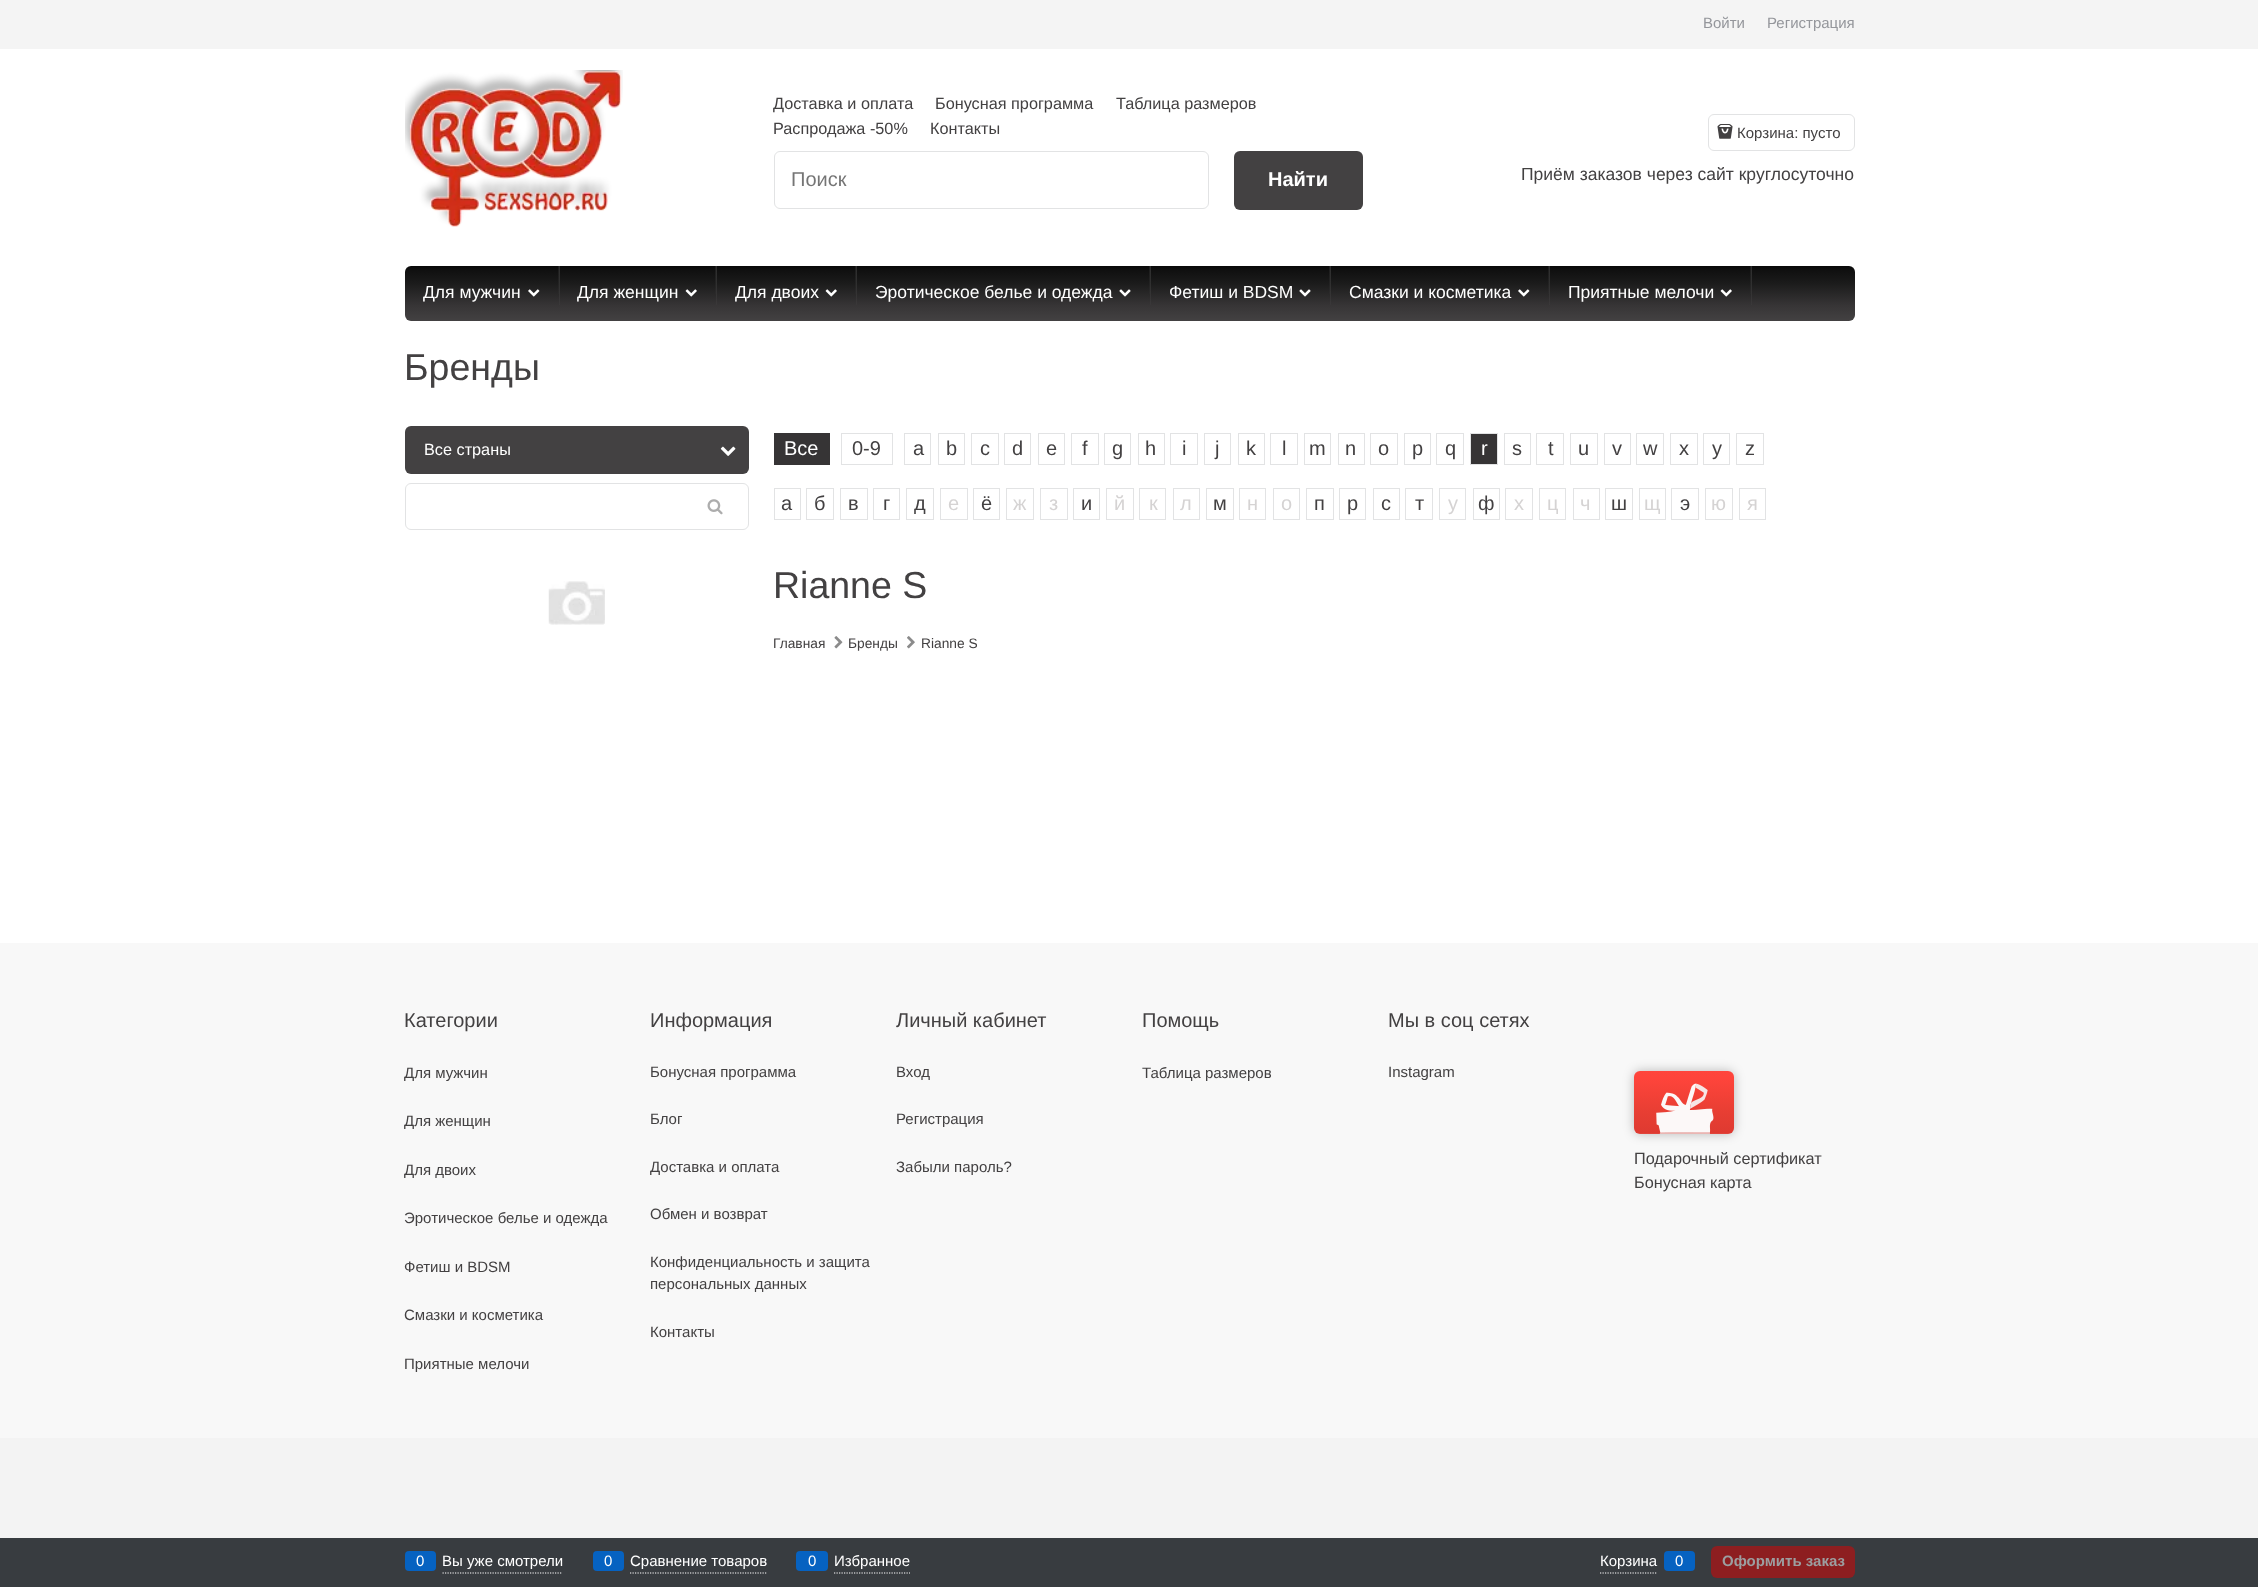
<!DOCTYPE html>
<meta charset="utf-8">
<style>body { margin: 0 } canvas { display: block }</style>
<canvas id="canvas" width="2258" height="1587"></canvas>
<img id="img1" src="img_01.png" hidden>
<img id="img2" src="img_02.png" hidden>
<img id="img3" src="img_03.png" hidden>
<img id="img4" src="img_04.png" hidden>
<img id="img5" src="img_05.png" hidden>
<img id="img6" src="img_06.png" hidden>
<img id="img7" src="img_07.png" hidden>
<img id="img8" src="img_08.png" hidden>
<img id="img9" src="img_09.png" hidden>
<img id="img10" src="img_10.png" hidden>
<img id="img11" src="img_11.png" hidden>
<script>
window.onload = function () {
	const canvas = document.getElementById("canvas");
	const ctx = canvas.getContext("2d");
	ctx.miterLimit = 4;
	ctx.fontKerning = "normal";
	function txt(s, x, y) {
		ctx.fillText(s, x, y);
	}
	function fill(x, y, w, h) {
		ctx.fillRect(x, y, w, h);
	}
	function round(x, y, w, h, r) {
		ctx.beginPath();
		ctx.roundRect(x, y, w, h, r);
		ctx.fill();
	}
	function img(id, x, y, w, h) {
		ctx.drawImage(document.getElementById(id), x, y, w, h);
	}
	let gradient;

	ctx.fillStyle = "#FFFFFF";
	fill(0, 0, 2258, 1587);
	ctx.fillStyle = "#F4F4F4";
	fill(0, 0, 2258, 49);
	img("img1", 405, 70, 218, 157);
	ctx.beginPath();
	ctx.roundRect(774.5, 151.5, 434, 57, 5.5);
	ctx.strokeStyle = "#E2E3E4";
	ctx.stroke();
	ctx.fillStyle = "#434142";
	round(1234, 151, 129, 59, 6);
	ctx.beginPath();
	ctx.roundRect(1708.5, 114.5, 146, 36, 5.5);
	ctx.stroke();
	img("img2", 1717, 124, 16, 15);
	gradient = ctx.createLinearGradient(1130, 266, 1130, 321);
	gradient.addColorStop(0, "#080808");
	gradient.addColorStop(0.08, "#101010");
	gradient.addColorStop(0.31, "#1B1B1B");
	gradient.addColorStop(0.72, "#373536");
	gradient.addColorStop(1, "#434142");
	ctx.fillStyle = gradient;
	round(405, 266, 1450, 55, 6);
	img("img3", 528, 289, 12, 8);
	gradient = ctx.createLinearGradient(559, 266, 559, 321);
	gradient.addColorStop(0, "rgba(255, 255, 255, 0.14)");
	gradient.addColorStop(0.72, "rgba(255, 255, 255, 0.02)");
	gradient.addColorStop(1, "rgba(255, 255, 255, 0)");
	ctx.fillStyle = gradient;
	fill(559, 266, 1, 39);
	gradient = ctx.createLinearGradient(558, 266, 558, 321);
	gradient.addColorStop(0, "rgba(57, 57, 57, 0.39)");
	gradient.addColorStop(0.17, "rgba(57, 57, 57, 0.33)");
	gradient.addColorStop(0.61, "rgba(57, 57, 57, 0.12)");
	gradient.addColorStop(0.96, "rgba(57, 57, 57, 0.01)");
	gradient.addColorStop(0.98, "rgba(255, 255, 255, 0.01)");
	gradient.addColorStop(1, "rgba(255, 255, 255, 0)");
	ctx.fillStyle = gradient;
	fill(558, 266, 1, 28);
	img("img4", 685, 289, 12, 8);
	gradient = ctx.createLinearGradient(717, 266, 717, 321);
	gradient.addColorStop(0, "rgba(255, 255, 255, 0.14)");
	gradient.addColorStop(0.72, "rgba(255, 255, 255, 0.02)");
	gradient.addColorStop(1, "rgba(255, 255, 255, 0)");
	ctx.fillStyle = gradient;
	fill(716, 266, 1, 39);
	gradient = ctx.createLinearGradient(716, 266, 716, 321);
	gradient.addColorStop(0, "rgba(57, 57, 57, 0.39)");
	gradient.addColorStop(0.17, "rgba(57, 57, 57, 0.33)");
	gradient.addColorStop(0.61, "rgba(57, 57, 57, 0.12)");
	gradient.addColorStop(0.96, "rgba(57, 57, 57, 0.01)");
	gradient.addColorStop(0.98, "rgba(255, 255, 255, 0.01)");
	gradient.addColorStop(1, "rgba(255, 255, 255, 0)");
	ctx.fillStyle = gradient;
	fill(715, 266, 1, 28);
	img("img4", 825, 289, 12, 8);
	gradient = ctx.createLinearGradient(857, 266, 857, 321);
	gradient.addColorStop(0, "rgba(255, 255, 255, 0.14)");
	gradient.addColorStop(0.72, "rgba(255, 255, 255, 0.02)");
	gradient.addColorStop(1, "rgba(255, 255, 255, 0)");
	ctx.fillStyle = gradient;
	fill(856, 266, 1, 39);
	gradient = ctx.createLinearGradient(856, 266, 856, 321);
	gradient.addColorStop(0, "rgba(57, 57, 57, 0.39)");
	gradient.addColorStop(0.17, "rgba(57, 57, 57, 0.33)");
	gradient.addColorStop(0.61, "rgba(57, 57, 57, 0.12)");
	gradient.addColorStop(0.96, "rgba(57, 57, 57, 0.01)");
	gradient.addColorStop(0.98, "rgba(255, 255, 255, 0.01)");
	gradient.addColorStop(1, "rgba(255, 255, 255, 0)");
	ctx.fillStyle = gradient;
	fill(855, 266, 1, 28);
	img("img5", 1119, 289, 12, 8);
	gradient = ctx.createLinearGradient(1151, 266, 1151, 321);
	gradient.addColorStop(0, "rgba(255, 255, 255, 0.14)");
	gradient.addColorStop(0.72, "rgba(255, 255, 255, 0.02)");
	gradient.addColorStop(1, "rgba(255, 255, 255, 0)");
	ctx.fillStyle = gradient;
	fill(1150, 266, 1, 39);
	gradient = ctx.createLinearGradient(1149, 266, 1149, 321);
	gradient.addColorStop(0, "rgba(57, 57, 57, 0.39)");
	gradient.addColorStop(0.17, "rgba(57, 57, 57, 0.33)");
	gradient.addColorStop(0.61, "rgba(57, 57, 57, 0.12)");
	gradient.addColorStop(0.96, "rgba(57, 57, 57, 0.01)");
	gradient.addColorStop(0.98, "rgba(255, 255, 255, 0.01)");
	gradient.addColorStop(1, "rgba(255, 255, 255, 0)");
	ctx.fillStyle = gradient;
	fill(1149, 266, 1, 28);
	img("img5", 1299, 289, 12, 8);
	gradient = ctx.createLinearGradient(1331, 266, 1331, 321);
	gradient.addColorStop(0, "rgba(255, 255, 255, 0.14)");
	gradient.addColorStop(0.72, "rgba(255, 255, 255, 0.02)");
	gradient.addColorStop(1, "rgba(255, 255, 255, 0)");
	ctx.fillStyle = gradient;
	fill(1330, 266, 1, 39);
	gradient = ctx.createLinearGradient(1329, 266, 1329, 321);
	gradient.addColorStop(0, "rgba(57, 57, 57, 0.39)");
	gradient.addColorStop(0.17, "rgba(57, 57, 57, 0.33)");
	gradient.addColorStop(0.61, "rgba(57, 57, 57, 0.12)");
	gradient.addColorStop(0.96, "rgba(57, 57, 57, 0.01)");
	gradient.addColorStop(0.98, "rgba(255, 255, 255, 0.01)");
	gradient.addColorStop(1, "rgba(255, 255, 255, 0)");
	ctx.fillStyle = gradient;
	fill(1329, 266, 1, 28);
	img("img3", 1518, 289, 12, 8);
	gradient = ctx.createLinearGradient(1549, 266, 1549, 321);
	gradient.addColorStop(0, "rgba(255, 255, 255, 0.14)");
	gradient.addColorStop(0.72, "rgba(255, 255, 255, 0.02)");
	gradient.addColorStop(1, "rgba(255, 255, 255, 0)");
	ctx.fillStyle = gradient;
	fill(1549, 266, 1, 39);
	gradient = ctx.createLinearGradient(1548, 266, 1548, 321);
	gradient.addColorStop(0, "rgba(57, 57, 57, 0.39)");
	gradient.addColorStop(0.17, "rgba(57, 57, 57, 0.33)");
	gradient.addColorStop(0.61, "rgba(57, 57, 57, 0.12)");
	gradient.addColorStop(0.96, "rgba(57, 57, 57, 0.01)");
	gradient.addColorStop(0.98, "rgba(255, 255, 255, 0.01)");
	gradient.addColorStop(1, "rgba(255, 255, 255, 0)");
	ctx.fillStyle = gradient;
	fill(1548, 266, 1, 28);
	img("img4", 1720, 289, 12, 8);
	gradient = ctx.createLinearGradient(1752, 266, 1752, 321);
	gradient.addColorStop(0, "rgba(255, 255, 255, 0.14)");
	gradient.addColorStop(0.72, "rgba(255, 255, 255, 0.02)");
	gradient.addColorStop(1, "rgba(255, 255, 255, 0)");
	ctx.fillStyle = gradient;
	fill(1751, 266, 1, 39);
	gradient = ctx.createLinearGradient(1751, 266, 1751, 321);
	gradient.addColorStop(0, "rgba(57, 57, 57, 0.39)");
	gradient.addColorStop(0.17, "rgba(57, 57, 57, 0.33)");
	gradient.addColorStop(0.61, "rgba(57, 57, 57, 0.12)");
	gradient.addColorStop(0.96, "rgba(57, 57, 57, 0.01)");
	gradient.addColorStop(0.98, "rgba(255, 255, 255, 0.01)");
	gradient.addColorStop(1, "rgba(255, 255, 255, 0)");
	ctx.fillStyle = gradient;
	fill(1750, 266, 1, 28);
	ctx.fillStyle = "#434142";
	round(405, 426, 344, 48, 6);
	img("img6", 720, 446, 16, 10);
	ctx.beginPath();
	ctx.roundRect(405.5, 483.5, 343, 46, 5.5);
	ctx.stroke();
	img("img7", 707, 499, 16, 16);
	ctx.fillStyle = "#363435";
	fill(774, 433, 56, 32);
	ctx.strokeRect(841.5, 433.5, 51, 31);
	ctx.strokeRect(904.5, 433.5, 26, 31);
	ctx.strokeRect(938.5, 433.5, 26, 31);
	ctx.strokeRect(971.5, 433.5, 27, 31);
	ctx.strokeRect(1004.5, 433.5, 26, 31);
	ctx.strokeRect(1038.5, 433.5, 26, 31);
	ctx.strokeRect(1071.5, 433.5, 27, 31);
	ctx.strokeRect(1104.5, 433.5, 26, 31);
	ctx.strokeRect(1138.5, 433.5, 26, 31);
	ctx.strokeRect(1170.5, 433.5, 27, 31);
	ctx.strokeRect(1204.5, 433.5, 26, 31);
	ctx.strokeRect(1238.5, 433.5, 26, 31);
	ctx.strokeRect(1270.5, 433.5, 27, 31);
	ctx.strokeRect(1304.5, 433.5, 26, 31);
	ctx.strokeRect(1338.5, 433.5, 26, 31);
	ctx.strokeRect(1370.5, 433.5, 27, 31);
	ctx.strokeRect(1404.5, 433.5, 26, 31);
	ctx.strokeRect(1436.5, 433.5, 27, 31);
	ctx.beginPath();
	ctx.rect(1470.5, 433.5, 27, 31);
	ctx.fill();
	ctx.stroke();
	ctx.strokeRect(1504.5, 433.5, 26, 31);
	ctx.strokeRect(1536.5, 433.5, 27, 31);
	ctx.strokeRect(1570.5, 433.5, 27, 31);
	ctx.strokeRect(1604.5, 433.5, 26, 31);
	ctx.strokeRect(1636.5, 433.5, 27, 31);
	ctx.strokeRect(1670.5, 433.5, 27, 31);
	ctx.strokeRect(1703.5, 433.5, 26, 31);
	ctx.strokeRect(1736.5, 433.5, 27, 31);
	ctx.strokeRect(774.5, 488.5, 26, 31);
	ctx.strokeRect(806.5, 488.5, 27, 31);
	ctx.strokeRect(840.5, 488.5, 27, 31);
	ctx.strokeRect(873.5, 488.5, 26, 31);
	ctx.strokeRect(906.5, 488.5, 27, 31);
	ctx.strokeRect(940.5, 488.5, 27, 31);
	ctx.strokeRect(973.5, 488.5, 26, 31);
	ctx.strokeRect(1006.5, 488.5, 27, 31);
	ctx.strokeRect(1040.5, 488.5, 27, 31);
	ctx.strokeRect(1073.5, 488.5, 26, 31);
	ctx.strokeRect(1106.5, 488.5, 27, 31);
	ctx.strokeRect(1139.5, 488.5, 26, 31);
	ctx.strokeRect(1173.5, 488.5, 26, 31);
	ctx.strokeRect(1206.5, 488.5, 27, 31);
	ctx.strokeRect(1239.5, 488.5, 26, 31);
	ctx.strokeRect(1273.5, 488.5, 26, 31);
	ctx.strokeRect(1306.5, 488.5, 27, 31);
	ctx.strokeRect(1339.5, 488.5, 26, 31);
	ctx.strokeRect(1373.5, 488.5, 26, 31);
	ctx.strokeRect(1405.5, 488.5, 27, 31);
	ctx.strokeRect(1439.5, 488.5, 26, 31);
	ctx.strokeRect(1473.5, 488.5, 26, 31);
	ctx.strokeRect(1505.5, 488.5, 27, 31);
	ctx.strokeRect(1539.5, 488.5, 26, 31);
	ctx.strokeRect(1573.5, 488.5, 26, 31);
	ctx.strokeRect(1605.5, 488.5, 27, 31);
	ctx.strokeRect(1639.5, 488.5, 26, 31);
	ctx.strokeRect(1671.5, 488.5, 27, 31);
	ctx.strokeRect(1705.5, 488.5, 27, 31);
	ctx.strokeRect(1739.5, 488.5, 26, 31);
	img("img8", 548, 581, 57, 44);
	img("img9", 834, 636, 9, 13);
	img("img10", 907, 636, 8, 13);
	ctx.fillStyle = "#F8F8F8";
	fill(0, 943, 2258, 495);
	ctx.fillStyle = "rgba(0, 0, 0, 0.25)";
	ctx.filter = "blur(5.5px)";
	ctx.beginPath();
	ctx.roundRect(1634, 1071, 100, 63, 6);
	ctx.fill();
	ctx.filter = "none";
	gradient = ctx.createLinearGradient(1684, 1071, 1684, 1134);
	gradient.addColorStop(0, "#FF453C");
	gradient.addColorStop(0.12, "#FE443B");
	gradient.addColorStop(0.67, "#E73E33");
	gradient.addColorStop(0.98, "#DF3A31");
	gradient.addColorStop(1, "#E24A41");
	ctx.fillStyle = gradient;
	round(1634, 1071, 100, 63, 6);
	img("img11", 1656, 1083, 58, 51);
	ctx.fillStyle = "#F3F3F3";
	fill(0, 1438, 2258, 100);
	ctx.fillStyle = "#383C40";
	fill(0, 1538, 2258, 49);
	ctx.beginPath();
	ctx.moveTo(442.5, 1573);
	ctx.lineTo(562.5, 1573);
	ctx.strokeStyle = "#FFFFFF";
	ctx.lineWidth = 1.2;
	ctx.setLineDash([1.25, 1.25]);
	ctx.stroke();
	ctx.fillStyle = "#0662C1";
	round(405, 1551, 31, 20, 4);
	ctx.beginPath();
	ctx.moveTo(630, 1573);
	ctx.lineTo(767.5, 1573);
	ctx.stroke();
	round(593, 1551, 31, 20, 4);
	ctx.beginPath();
	ctx.moveTo(834, 1573);
	ctx.lineTo(910, 1573);
	ctx.stroke();
	round(796, 1551, 32, 20, 4);
	ctx.beginPath();
	ctx.moveTo(1600, 1573);
	ctx.lineTo(1657.5, 1573);
	ctx.stroke();
	round(1664, 1551, 31, 20, 4);
	ctx.fillStyle = "#8D1E20";
	round(1711, 1546, 144, 32, 6);
	ctx.font = "15px Liberation Sans";
	ctx.fillStyle = "#94969B";
	txt("Войти", 1703, 28);
	txt("Регистрация", 1767, 28);
	ctx.font = "16.25px Liberation Sans";
	ctx.fillStyle = "#434142";
	txt("Доставка и оплата", 773, 109);
	txt("Бонусная программа", 935, 109);
	txt("Таблица размеров", 1116, 109);
	txt("Распродажа -50%", 773, 134);
	txt("Контакты", 930, 134);
	ctx.font = "20px Liberation Sans";
	ctx.fillStyle = "#757575";
	txt("Поиск", 791, 186);
	ctx.font = "bold 20px Liberation Sans";
	ctx.fillStyle = "#FFFFFF";
	txt("Найти", 1268, 186);
	ctx.font = "15px Liberation Sans";
	ctx.fillStyle = "#434142";
	txt("Корзина: пусто", 1737, 138);
	ctx.font = "17.5px Liberation Sans";
	txt("Приём заказов через сайт круглосуточно", 1521, 180);
	ctx.fillStyle = "#FFFFFF";
	txt("Для мужчин", 423, 298);
	txt("Для женщин", 577, 298);
	txt("Для двоих", 735, 298);
	txt("Эротическое белье и одежда", 875, 298);
	txt("Фетиш и BDSM", 1169, 298);
	txt("Смазки и косметика", 1349, 298);
	txt("Приятные мелочи", 1568, 298);
	ctx.font = "37.5px Liberation Sans";
	ctx.fillStyle = "#434142";
	txt("Бренды", 404, 380);
	ctx.font = "16.25px Liberation Sans";
	ctx.fillStyle = "#FFFFFF";
	txt("Все страны", 424, 455);
	ctx.font = "20px Liberation Sans";
	txt("Все", 784, 455);
	ctx.fillStyle = "#434142";
	txt("0-9", 852, 455);
	txt("a", 913, 455);
	txt("b", 946, 455);
	txt("c", 980, 455);
	txt("d", 1012, 455);
	txt("e", 1046, 455);
	txt("f", 1082, 455);
	txt("g", 1112, 455);
	txt("h", 1145, 455);
	txt("i", 1182, 455);
	txt("j", 1215, 455);
	txt("k", 1246, 455);
	txt("l", 1282, 455);
	txt("m", 1309, 455);
	txt("n", 1345, 455);
	txt("o", 1378, 455);
	txt("p", 1412, 455);
	txt("q", 1445, 455);
	ctx.fillStyle = "#FFFFFF";
	txt("r", 1481, 455);
	ctx.fillStyle = "#434142";
	txt("s", 1512, 455);
	txt("t", 1548, 455);
	txt("u", 1578, 455);
	txt("v", 1612, 455);
	txt("w", 1643, 455);
	txt("x", 1679, 455);
	txt("y", 1712, 455);
	txt("z", 1745, 455);
	txt("а", 781, 510);
	txt("б", 814, 510);
	txt("в", 848, 510);
	txt("г", 883, 510);
	txt("д", 914, 510);
	ctx.fillStyle = "#D5D3D3";
	txt("е", 948, 510);
	ctx.fillStyle = "#434142";
	txt("ё", 981, 510);
	ctx.fillStyle = "#D5D3D3";
	txt("ж", 1013, 510);
	txt("з", 1049, 510);
	ctx.fillStyle = "#434142";
	txt("и", 1081, 510);
	ctx.fillStyle = "#D5D3D3";
	txt("й", 1114, 510);
	txt("к", 1149, 510);
	txt("л", 1180, 510);
	ctx.fillStyle = "#434142";
	txt("м", 1213, 510);
	ctx.fillStyle = "#D5D3D3";
	txt("н", 1247, 510);
	txt("о", 1281, 510);
	ctx.fillStyle = "#434142";
	txt("п", 1314, 510);
	txt("р", 1347, 510);
	txt("с", 1381, 510);
	txt("т", 1415, 510);
	ctx.fillStyle = "#D5D3D3";
	txt("у", 1448, 510);
	ctx.fillStyle = "#434142";
	txt("ф", 1478, 510);
	ctx.fillStyle = "#D5D3D3";
	txt("х", 1514, 510);
	txt("ц", 1547, 510);
	txt("ч", 1580, 510);
	ctx.fillStyle = "#434142";
	txt("ш", 1611, 510);
	ctx.fillStyle = "#D5D3D3";
	txt("щ", 1644, 510);
	ctx.fillStyle = "#434142";
	txt("э", 1680, 510);
	ctx.fillStyle = "#D5D3D3";
	txt("ю", 1711, 510);
	txt("я", 1747, 510);
	ctx.font = "37.5px Liberation Sans";
	ctx.fillStyle = "#434142";
	txt("Rianne S", 773, 598);
	ctx.font = "13.75px Liberation Sans";
	txt("Главная", 773, 648);
	txt("Бренды", 848, 648);
	txt("Rianne S", 921, 648);
	ctx.font = "20px Liberation Sans";
	txt("Категории", 404, 1027);
	ctx.font = "15px Liberation Sans";
	txt("Для мужчин", 404, 1078);
	txt("Для женщин", 404, 1126);
	txt("Для двоих", 404, 1175);
	txt("Эротическое белье и одежда", 404, 1223);
	txt("Фетиш и BDSM", 404, 1272);
	txt("Смазки и косметика", 404, 1320);
	txt("Приятные мелочи", 404, 1369);
	ctx.font = "20px Liberation Sans";
	txt("Информация", 650, 1027);
	ctx.font = "15px Liberation Sans";
	txt("Бонусная программа", 650, 1077);
	txt("Блог", 650, 1124);
	txt("Доставка и оплата", 650, 1172);
	txt("Обмен и возврат", 650, 1219);
	txt("Конфиденциальность и защита", 650, 1267);
	txt("персональных данных", 650, 1289);
	txt("Контакты", 650, 1337);
	ctx.font = "20px Liberation Sans";
	txt("Личный кабинет", 896, 1027);
	ctx.font = "15px Liberation Sans";
	txt("Вход", 896, 1077);
	txt("Регистрация", 896, 1124);
	txt("Забыли пароль?", 896, 1172);
	ctx.font = "20px Liberation Sans";
	txt("Помощь", 1142, 1027);
	ctx.font = "15px Liberation Sans";
	txt("Таблица размеров", 1142, 1078);
	ctx.font = "20px Liberation Sans";
	txt("Мы в соц сетях", 1388, 1027);
	ctx.font = "15px Liberation Sans";
	txt("Instagram", 1388, 1077);
	ctx.font = "16.25px Liberation Sans";
	txt("Подарочный сертификат", 1634, 1164);
	txt("Бонусная карта", 1634, 1188);
	ctx.font = "15px Liberation Sans";
	ctx.fillStyle = "#FFFFFF";
	txt("0", 416, 1566);
	txt("Вы уже смотрели", 442, 1566);
	txt("0", 604, 1566);
	txt("Сравнение товаров", 630, 1566);
	txt("0", 808, 1566);
	txt("Избранное", 834, 1566);
	txt("Корзина", 1600, 1566);
	txt("0", 1675, 1566);
	ctx.font = "bold 15px Liberation Sans";
	ctx.fillStyle = "#9C9EA0";
	txt("Оформить заказ", 1722, 1566);
};
</script>
